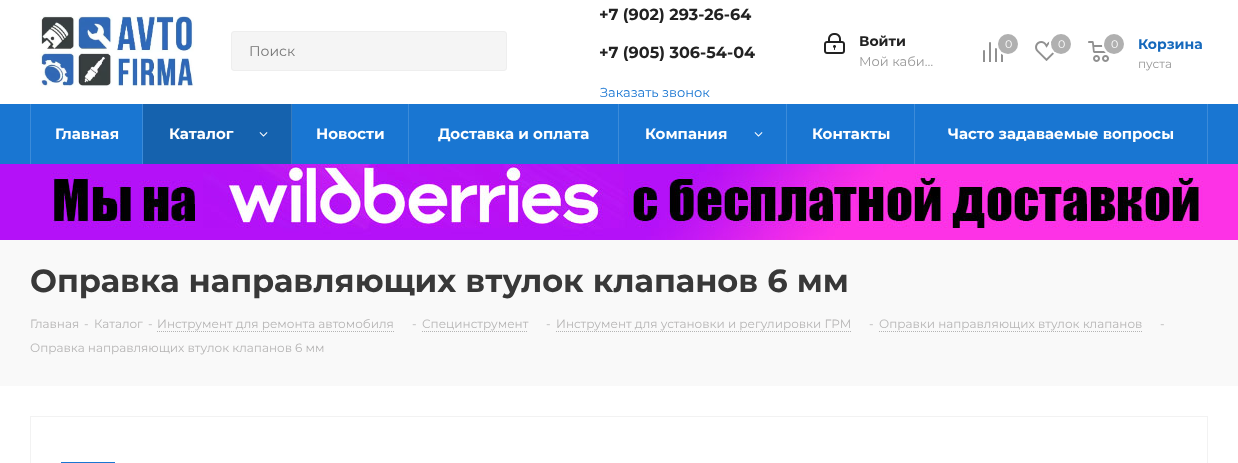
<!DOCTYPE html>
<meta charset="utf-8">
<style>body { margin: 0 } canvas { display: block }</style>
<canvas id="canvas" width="1238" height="463"></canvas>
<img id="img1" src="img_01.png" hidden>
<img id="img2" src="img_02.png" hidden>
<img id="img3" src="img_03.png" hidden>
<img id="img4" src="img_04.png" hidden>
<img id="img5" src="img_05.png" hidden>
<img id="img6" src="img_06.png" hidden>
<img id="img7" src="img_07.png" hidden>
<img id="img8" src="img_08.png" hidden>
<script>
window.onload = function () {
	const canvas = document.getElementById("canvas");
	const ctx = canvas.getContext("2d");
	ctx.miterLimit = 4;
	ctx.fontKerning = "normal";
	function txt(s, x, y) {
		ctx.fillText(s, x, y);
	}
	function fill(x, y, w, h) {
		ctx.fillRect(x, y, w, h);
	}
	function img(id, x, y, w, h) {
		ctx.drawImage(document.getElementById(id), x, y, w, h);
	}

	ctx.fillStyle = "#FFFFFF";
	fill(0, 0, 1238, 463);
	img("img1", 30, 11, 171, 81);
	ctx.fillStyle = "#F5F5F5";
	ctx.beginPath();
	ctx.roundRect(231.5, 31.5, 275, 39, 2.5);
	ctx.fill();
	ctx.strokeStyle = "#EEEEEE";
	ctx.stroke();
	img("img2", 824, 33, 21, 21);
	img("img3", 983, 42, 20, 20);
	ctx.beginPath();
	ctx.arc(1008, 44, 11, 0, Math.PI * 2);
	ctx.strokeStyle = "#FFFFFF";
	ctx.lineWidth = 2;
	ctx.stroke();
	ctx.fillStyle = "#B0B0B0";
	ctx.beginPath();
	ctx.arc(1008, 44, 10, 0, Math.PI * 2);
	ctx.fill();
	img("img4", 1035, 41, 21, 20);
	ctx.beginPath();
	ctx.arc(1061, 44, 11, 0, Math.PI * 2);
	ctx.stroke();
	ctx.beginPath();
	ctx.arc(1061, 44, 10, 0, Math.PI * 2);
	ctx.fill();
	img("img5", 1088, 41, 21, 21);
	ctx.beginPath();
	ctx.arc(1114, 44, 11, 0, Math.PI * 2);
	ctx.stroke();
	ctx.beginPath();
	ctx.arc(1114, 44, 11, 0, Math.PI * 2);
	ctx.stroke();
	ctx.beginPath();
	ctx.arc(1114, 44, 10, 0, Math.PI * 2);
	ctx.fill();
	ctx.fillStyle = "#1976D2";
	fill(0, 104, 1238, 60);
	ctx.fillStyle = "#3C8BD9";
	fill(30, 104, 1, 60);
	fill(142, 104, 1, 60);
	ctx.fillStyle = "#1562AE";
	fill(143, 104, 148, 60);
	ctx.fillStyle = "#387ABA";
	fill(291, 104, 1, 60);
	img("img6", 259, 132, 9, 5);
	ctx.fillStyle = "#3C8BD9";
	fill(408, 104, 1, 60);
	fill(618, 104, 1, 60);
	fill(786, 104, 1, 60);
	img("img7", 754, 132, 9, 5);
	fill(914, 104, 1, 60);
	fill(1207, 104, 1, 60);
	img("img8", 0, 164, 1238, 76);
	ctx.fillStyle = "#F9F9F9";
	fill(0, 240, 1238, 146);
	ctx.beginPath();
	ctx.moveTo(157, 331.5);
	ctx.lineTo(394, 331.5);
	ctx.strokeStyle = "#B4B4B4";
	ctx.lineWidth = 1;
	ctx.setLineDash([1, 1]);
	ctx.stroke();
	ctx.beginPath();
	ctx.moveTo(422, 331.5);
	ctx.lineTo(528, 331.5);
	ctx.stroke();
	ctx.beginPath();
	ctx.moveTo(556, 331.5);
	ctx.lineTo(851, 331.5);
	ctx.stroke();
	ctx.beginPath();
	ctx.moveTo(879, 331.5);
	ctx.lineTo(1142, 331.5);
	ctx.stroke();
	ctx.strokeStyle = "#F2F2F2";
	ctx.setLineDash([]);
	ctx.strokeRect(30.5, 416.5, 1177, 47);
	ctx.strokeStyle = "#1976D2";
	ctx.lineWidth = 2;
	ctx.strokeRect(62, 463, 52, 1);
	ctx.font = "14px Montserrat";
	ctx.fillStyle = "#757575";
	txt("Поиск", 249, 56);
	ctx.font = "bold 16px Montserrat";
	ctx.fillStyle = "#222222";
	txt("+7 (902) 293-26-64", 599, 20);
	txt("+7 (905) 306-54-04", 599, 58);
	ctx.font = "13px Montserrat";
	ctx.fillStyle = "#1976D2";
	txt("Заказать звонок", 600, 97);
	ctx.font = "bold 14px Montserrat";
	ctx.fillStyle = "#222222";
	txt("Войти", 859, 46);
	ctx.font = "13px Montserrat";
	ctx.fillStyle = "#999999";
	txt("Мой каби…", 859, 66);
	ctx.font = "11px Montserrat";
	ctx.fillStyle = "#FFFFFF";
	txt("0", 1005, 48);
	txt("0", 1058, 48);
	txt("0", 1111, 48);
	ctx.font = "bold 14px Montserrat";
	ctx.fillStyle = "#1569BC";
	txt("Корзина", 1138, 49);
	ctx.font = "12px Montserrat";
	ctx.fillStyle = "#999999";
	txt("пуста", 1138, 68);
	ctx.font = "bold 15px Montserrat";
	ctx.fillStyle = "#FFFFFF";
	txt("Главная", 55, 139);
	txt("Каталог", 169, 139);
	txt("Новости", 316, 139);
	txt("Доставка и оплата", 438, 139);
	txt("Компания", 645, 139);
	txt("Контакты", 812, 139);
	txt("Часто задаваемые вопросы", 948, 139);
	ctx.font = "bold 32px Montserrat";
	ctx.fillStyle = "#383838";
	txt("Оправка направляющих втулок клапанов 6 мм", 30, 292);
	ctx.font = "12px Montserrat";
	ctx.fillStyle = "#B6B5B5";
	txt("Главная", 30, 328);
	txt("-", 84, 328);
	txt("Каталог", 94, 328);
	txt("-", 148, 328);
	txt("Инструмент для ремонта автомобиля", 157, 328);
	txt("-", 412, 328);
	txt("Специнструмент", 422, 328);
	txt("-", 546, 328);
	txt("Инструмент для установки и регулировки ГРМ", 556, 328);
	txt("-", 869, 328);
	txt("Оправки направляющих втулок клапанов", 879, 328);
	txt("-", 1160, 328);
	txt("Оправка направляющих втулок клапанов 6 мм", 30, 352);
};
</script>
